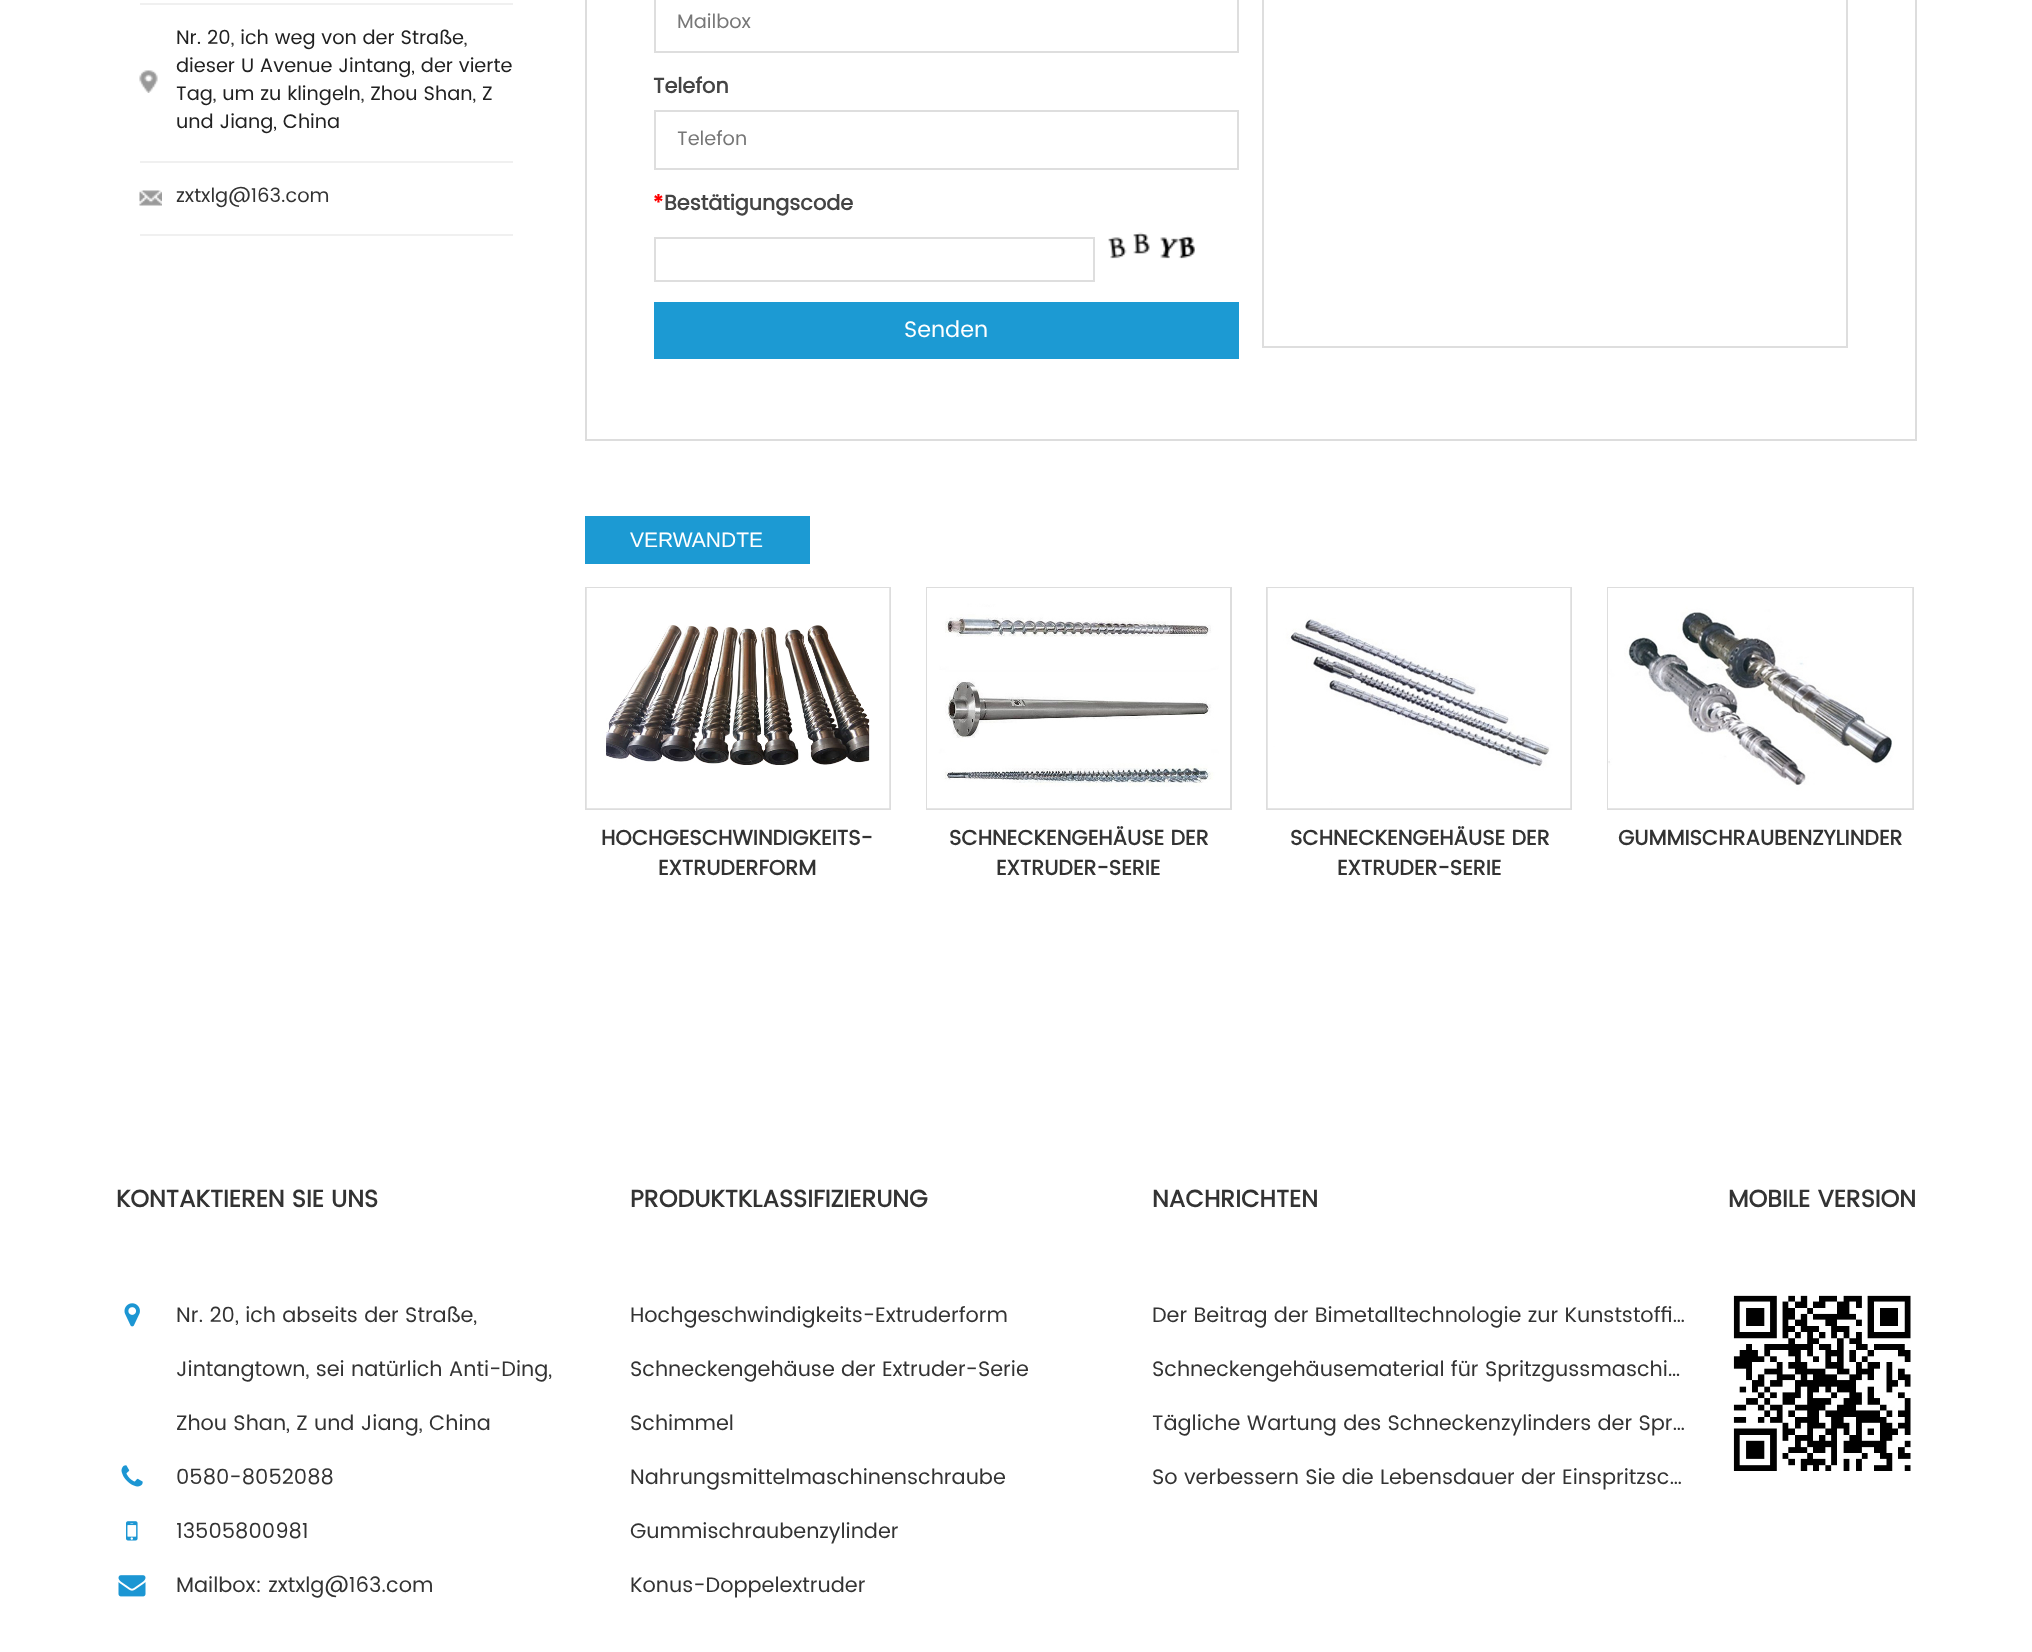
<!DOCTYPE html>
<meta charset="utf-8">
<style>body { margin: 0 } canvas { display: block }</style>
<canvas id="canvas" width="2032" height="1652"></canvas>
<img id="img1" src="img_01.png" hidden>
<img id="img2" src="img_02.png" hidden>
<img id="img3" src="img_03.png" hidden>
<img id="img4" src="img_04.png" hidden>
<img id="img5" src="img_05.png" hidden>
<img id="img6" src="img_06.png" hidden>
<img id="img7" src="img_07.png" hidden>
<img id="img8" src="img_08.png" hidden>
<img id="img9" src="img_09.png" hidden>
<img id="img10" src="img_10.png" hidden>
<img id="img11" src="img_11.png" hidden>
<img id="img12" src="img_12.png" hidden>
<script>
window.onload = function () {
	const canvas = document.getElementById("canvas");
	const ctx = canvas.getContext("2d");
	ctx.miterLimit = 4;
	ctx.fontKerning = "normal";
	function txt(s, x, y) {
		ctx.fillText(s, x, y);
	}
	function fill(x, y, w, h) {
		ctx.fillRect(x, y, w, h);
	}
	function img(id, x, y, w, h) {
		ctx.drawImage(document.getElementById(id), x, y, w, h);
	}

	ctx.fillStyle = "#FFFFFF";
	fill(0, 0, 2032, 1652);
	ctx.fillStyle = "#F0F0F0";
	fill(140, 3, 373, 2);
	img("img1", 139, 70, 19, 23);
	fill(140, 161, 373, 2);
	img("img2", 139, 190, 23, 16);
	fill(140, 234, 373, 2);
	ctx.strokeStyle = "#DDDDDD";
	ctx.lineWidth = 2;
	ctx.strokeRect(586, -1, 1330, 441);
	ctx.strokeStyle = "#DEDEDE";
	ctx.strokeRect(655, -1, 583, 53);
	ctx.strokeRect(655, 111, 583, 58);
	ctx.strokeRect(655, 238, 439, 43);
	img("img3", 1108, 232, 87, 27);
	ctx.fillStyle = "#1C9AD3";
	fill(654, 302, 585, 57);
	ctx.strokeRect(1263, -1, 584, 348);
	fill(585, 516, 225, 48);
	ctx.strokeStyle = "#DDDDDD";
	ctx.strokeRect(586, 588, 304, 221);
	img("img4", 586, 588, 304, 221);
	ctx.strokeRect(927, 588, 304, 221);
	img("img5", 927, 588, 303, 221);
	ctx.strokeRect(1267, 588, 304, 221);
	img("img6", 1267, 588, 304, 221);
	ctx.strokeRect(1608, 588, 305, 221);
	img("img7", 1608, 588, 305, 221);
	img("img8", 124, 1303, 16, 24);
	img("img9", 121, 1465, 22, 22);
	img("img10", 126, 1521, 12, 20);
	img("img11", 118, 1575, 28, 22);
	img("img12", 1733, 1295, 178, 176);
	ctx.font = "19.5px Poppins";
	ctx.fillStyle = "#212121";
	txt("Nr. 20, ich weg von der Straße,", 176, 44);
	txt("dieser U Avenue Jintang, der vierte", 176, 72);
	txt("Tag, um zu klingeln, Zhou Shan, Z", 176, 100);
	txt("und Jiang, China", 176, 128);
	ctx.fillStyle = "#333333";
	txt("zxtxlg@163.com", 176, 202);
	ctx.fillStyle = "#777777";
	txt("Mailbox", 677, 28);
	ctx.font = "bold 21px Poppins";
	ctx.fillStyle = "#444444";
	txt("Telefon", 653, 93);
	ctx.font = "19.5px Poppins";
	ctx.fillStyle = "#777777";
	txt("Telefon", 677, 145);
	ctx.font = "bold 21px Poppins";
	ctx.fillStyle = "#FF0000";
	txt("*", 653, 210);
	ctx.fillStyle = "#444444";
	txt("Bestätigungscode", 664, 210);
	ctx.font = "22.5px Poppins";
	ctx.fillStyle = "#FFFFFF";
	txt("Senden", 904, 337);
	ctx.font = "21px Liberation Sans";
	txt("VERWANDTE", 630, 547);
	ctx.font = "bold 21px Poppins";
	ctx.fillStyle = "#333333";
	txt("HOCHGESCHWINDIGKEITS-", 601, 845);
	txt("EXTRUDERFORM", 658, 875);
	txt("SCHNECKENGEHÄUSE DER", 949, 845);
	txt("EXTRUDER-SERIE", 996, 875);
	txt("SCHNECKENGEHÄUSE DER", 1290, 845);
	txt("EXTRUDER-SERIE", 1337, 875);
	txt("GUMMISCHRAUBENZYLINDER", 1618, 845);
	ctx.font = "bold 24px 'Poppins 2'";
	txt("KONTAKTIEREN SIE UNS", 116, 1207);
	ctx.font = "21px Poppins";
	txt("Nr. 20, ich abseits der Straße,", 176, 1322);
	txt("Jintangtown, sei natürlich Anti-Ding,", 176, 1376);
	txt("Zhou Shan, Z und Jiang, China", 176, 1430);
	txt("0580-8052088", 176, 1484);
	txt("13505800981", 176, 1538);
	txt("Mailbox: zxtxlg@163.com", 176, 1592);
	ctx.font = "bold 24px 'Poppins 2'";
	txt("PRODUKTKLASSIFIZIERUNG", 630, 1207);
	ctx.font = "21px Poppins";
	txt("Hochgeschwindigkeits-Extruderform", 630, 1322);
	txt("Schneckengehäuse der Extruder-Serie", 630, 1376);
	txt("Schimmel", 630, 1430);
	txt("Nahrungsmittelmaschinenschraube", 630, 1484);
	txt("Gummischraubenzylinder", 630, 1538);
	txt("Konus-Doppelextruder", 630, 1592);
	ctx.font = "bold 24px 'Poppins 2'";
	txt("NACHRICHTEN", 1152, 1207);
	ctx.font = "21px Poppins";
	txt("Der Beitrag der Bimetalltechnologie zur Kunststoffi…", 1152, 1322);
	txt("Schneckengehäusematerial für Spritzgussmaschi…", 1152, 1376);
	txt("Tägliche Wartung des Schneckenzylinders der Spr…", 1152, 1430);
	txt("So verbessern Sie die Lebensdauer der Einspritzsc…", 1152, 1484);
	ctx.font = "bold 24px 'Poppins 2'";
	txt("MOBILE VERSION", 1728, 1207);
};
</script>
